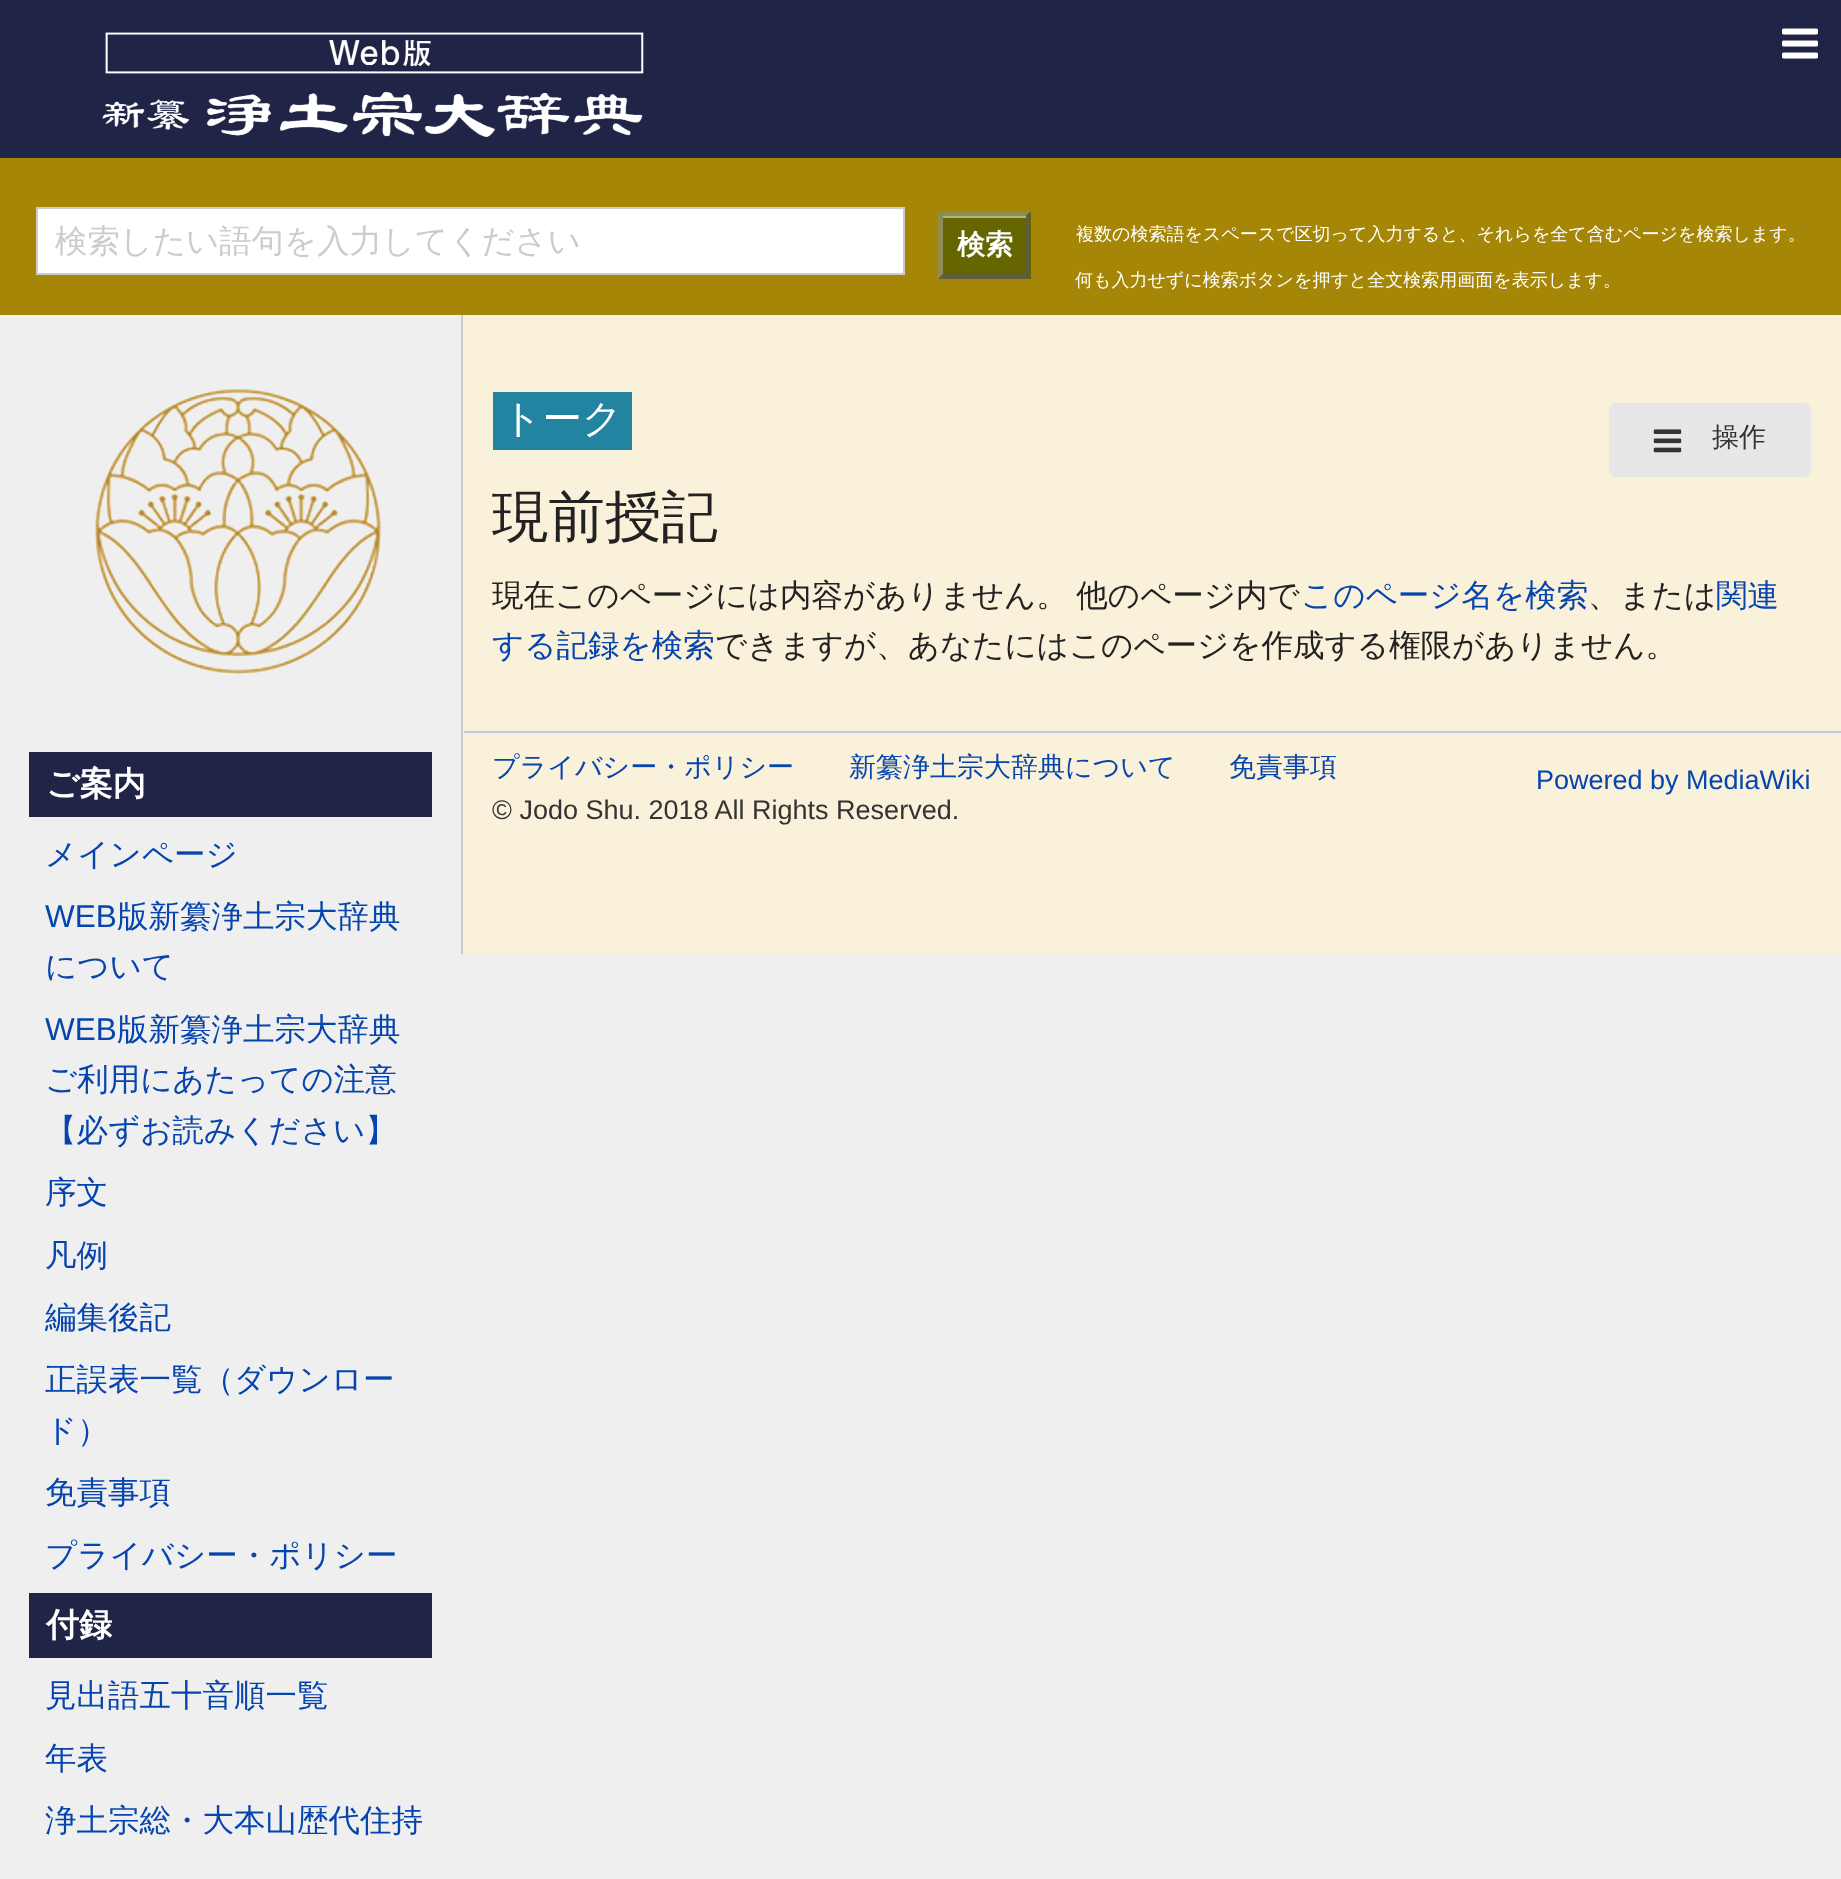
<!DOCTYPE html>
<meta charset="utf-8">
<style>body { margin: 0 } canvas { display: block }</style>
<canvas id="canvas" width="1841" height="1879"></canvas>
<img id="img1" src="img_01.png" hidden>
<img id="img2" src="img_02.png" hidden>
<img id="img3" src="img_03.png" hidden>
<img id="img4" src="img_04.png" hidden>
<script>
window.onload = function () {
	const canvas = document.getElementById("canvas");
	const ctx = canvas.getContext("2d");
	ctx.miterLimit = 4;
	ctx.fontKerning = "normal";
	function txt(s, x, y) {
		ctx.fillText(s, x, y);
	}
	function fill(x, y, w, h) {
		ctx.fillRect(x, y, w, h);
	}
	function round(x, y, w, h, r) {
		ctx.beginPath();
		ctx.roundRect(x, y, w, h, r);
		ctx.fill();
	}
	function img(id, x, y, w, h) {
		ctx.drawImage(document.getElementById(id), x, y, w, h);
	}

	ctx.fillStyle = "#EFEFEF";
	fill(0, 0, 1841, 1879);
	ctx.fillStyle = "#202547";
	fill(0, 0, 1841, 158);
	img("img1", 102, 32, 542, 105);
	img("img2", 1782, 28, 36, 31);
	ctx.fillStyle = "#A58607";
	fill(0, 158, 1841, 157);
	ctx.fillStyle = "#FFFFFF";
	ctx.beginPath();
	ctx.rect(37, 208, 867, 66);
	ctx.fill();
	ctx.strokeStyle = "#CCCCCC";
	ctx.lineWidth = 2;
	ctx.stroke();
	ctx.fillStyle = "#666600";
	fill(938, 212, 93, 67);
	ctx.fillStyle = "#B3B380";
	fill(943, 216, 83, 2);
	ctx.fillStyle = "#908B54";
	ctx.beginPath();
	ctx.moveTo(938, 212);
	ctx.lineTo(1030, 212);
	ctx.lineTo(1026, 216);
	ctx.lineTo(943, 216);
	ctx.closePath();
	ctx.fill();
	ctx.fillStyle = "#605D38";
	ctx.beginPath();
	ctx.moveTo(1030, 212);
	ctx.lineTo(1030, 279);
	ctx.lineTo(1026, 274);
	ctx.lineTo(1026, 216);
	ctx.closePath();
	ctx.fill();
	ctx.beginPath();
	ctx.moveTo(1030, 279);
	ctx.lineTo(938, 279);
	ctx.lineTo(943, 274);
	ctx.lineTo(1026, 274);
	ctx.closePath();
	ctx.fill();
	ctx.fillStyle = "#908B54";
	ctx.beginPath();
	ctx.moveTo(938, 279);
	ctx.lineTo(938, 212);
	ctx.lineTo(943, 216);
	ctx.lineTo(943, 274);
	ctx.closePath();
	ctx.fill();
	ctx.fillStyle = "#FAF1DA";
	fill(463, 315, 1378, 639);
	ctx.fillStyle = "#CCCCCC";
	fill(461, 315, 2, 639);
	ctx.fillStyle = "#2284A1";
	fill(493, 392, 139, 58);
	ctx.fillStyle = "#E7E7E7";
	round(1609, 403, 202, 74, 7);
	img("img3", 1653, 429, 29, 24);
	ctx.fillStyle = "#C3C3E5";
	fill(464, 731, 1377, 2);
	img("img4", 95, 389, 286, 285);
	ctx.fillStyle = "#202547";
	fill(29, 752, 403, 65);
	fill(29, 1593, 403, 65);
	ctx.font = "500 32.4px WenQuanYi Zen Hei";
	ctx.fillStyle = "#CCCCCC";
	txt("検索したい語句を入力してください", 55, 252);
	ctx.font = "bold 28px WenQuanYi Zen Hei";
	ctx.fillStyle = "#FFFFFF";
	txt("検索", 957, 254);
	ctx.font = "500 18px WenQuanYi Zen Hei";
	txt("複数の検索語をスペースで区切って入力すると、それらを全て含むページを検索します。", 1076, 240);
	txt("何も入力せずに検索ボタンを押すと全文検索用画面を表示します。", 1075, 286);
	ctx.font = "500 39.5px WenQuanYi Zen Hei";
	txt("トーク", 502, 432);
	ctx.font = "500 27px WenQuanYi Zen Hei";
	ctx.fillStyle = "#333333";
	txt("操作", 1712, 446);
	ctx.font = "500 56.5px WenQuanYi Zen Hei";
	ctx.fillStyle = "#222222";
	txt("現前授記", 492, 536);
	ctx.wordSpacing = "-1px";
	ctx.font = "500 31.5px WenQuanYi Zen Hei";
	txt("現在このページには内容がありません。 他のページ内で", 492, 606);
	ctx.wordSpacing = "0px";
	ctx.fillStyle = "#0645AD";
	txt("このページ名を検索", 1301, 606);
	ctx.fillStyle = "#222222";
	txt("、または", 1588, 606);
	ctx.fillStyle = "#0645AD";
	txt("関連", 1716, 606);
	txt("する記録を検索", 492, 656);
	ctx.fillStyle = "#222222";
	txt("できますが、あなたにはこのページを作成する権限がありません。", 715, 656);
	ctx.font = "500 27px WenQuanYi Zen Hei";
	ctx.fillStyle = "#0645AD";
	txt("プライバシー・ポリシー", 492, 776);
	txt("新纂浄土宗大辞典について", 849, 776);
	txt("免責事項", 1229, 776);
	ctx.font = "27px Liberation Sans";
	ctx.fillStyle = "#333333";
	txt("© Jodo Shu. 2018 All Rights Reserved.", 492, 819);
	ctx.fillStyle = "#0645AD";
	txt("Powered by MediaWiki", 1536, 789);
	ctx.font = "bold 33px WenQuanYi Zen Hei";
	ctx.fillStyle = "#FFFFFF";
	txt("ご案内", 46, 795);
	ctx.font = "500 31.5px WenQuanYi Zen Hei";
	ctx.fillStyle = "#0645AD";
	txt("メインページ", 45, 865);
	ctx.font = "31.5px Liberation Sans";
	txt("WEB", 45, 927);
	ctx.font = "500 31.5px WenQuanYi Zen Hei";
	txt("版新纂浄土宗大辞典", 117, 927);
	txt("について", 45, 977);
	ctx.font = "31.5px Liberation Sans";
	txt("WEB", 45, 1040);
	ctx.font = "500 31.5px WenQuanYi Zen Hei";
	txt("版新纂浄土宗大辞典", 117, 1040);
	txt("ご利用にあたっての注意", 45, 1090);
	txt("【必ずお読みください】", 45, 1141);
	txt("序文", 45, 1203);
	txt("凡例", 45, 1266);
	txt("編集後記", 45, 1328);
	txt("正誤表一覧（ダウンロー", 45, 1390);
	txt("ド）", 45, 1441);
	txt("免責事項", 45, 1503);
	txt("プライバシー・ポリシー", 45, 1566);
	ctx.font = "bold 33px WenQuanYi Zen Hei";
	ctx.fillStyle = "#FFFFFF";
	txt("付録", 46, 1636);
	ctx.font = "500 31.5px WenQuanYi Zen Hei";
	ctx.fillStyle = "#0645AD";
	txt("見出語五十音順一覧", 45, 1706);
	txt("年表", 45, 1769);
	txt("浄土宗総・大本山歴代住持", 45, 1831);
};
</script>
